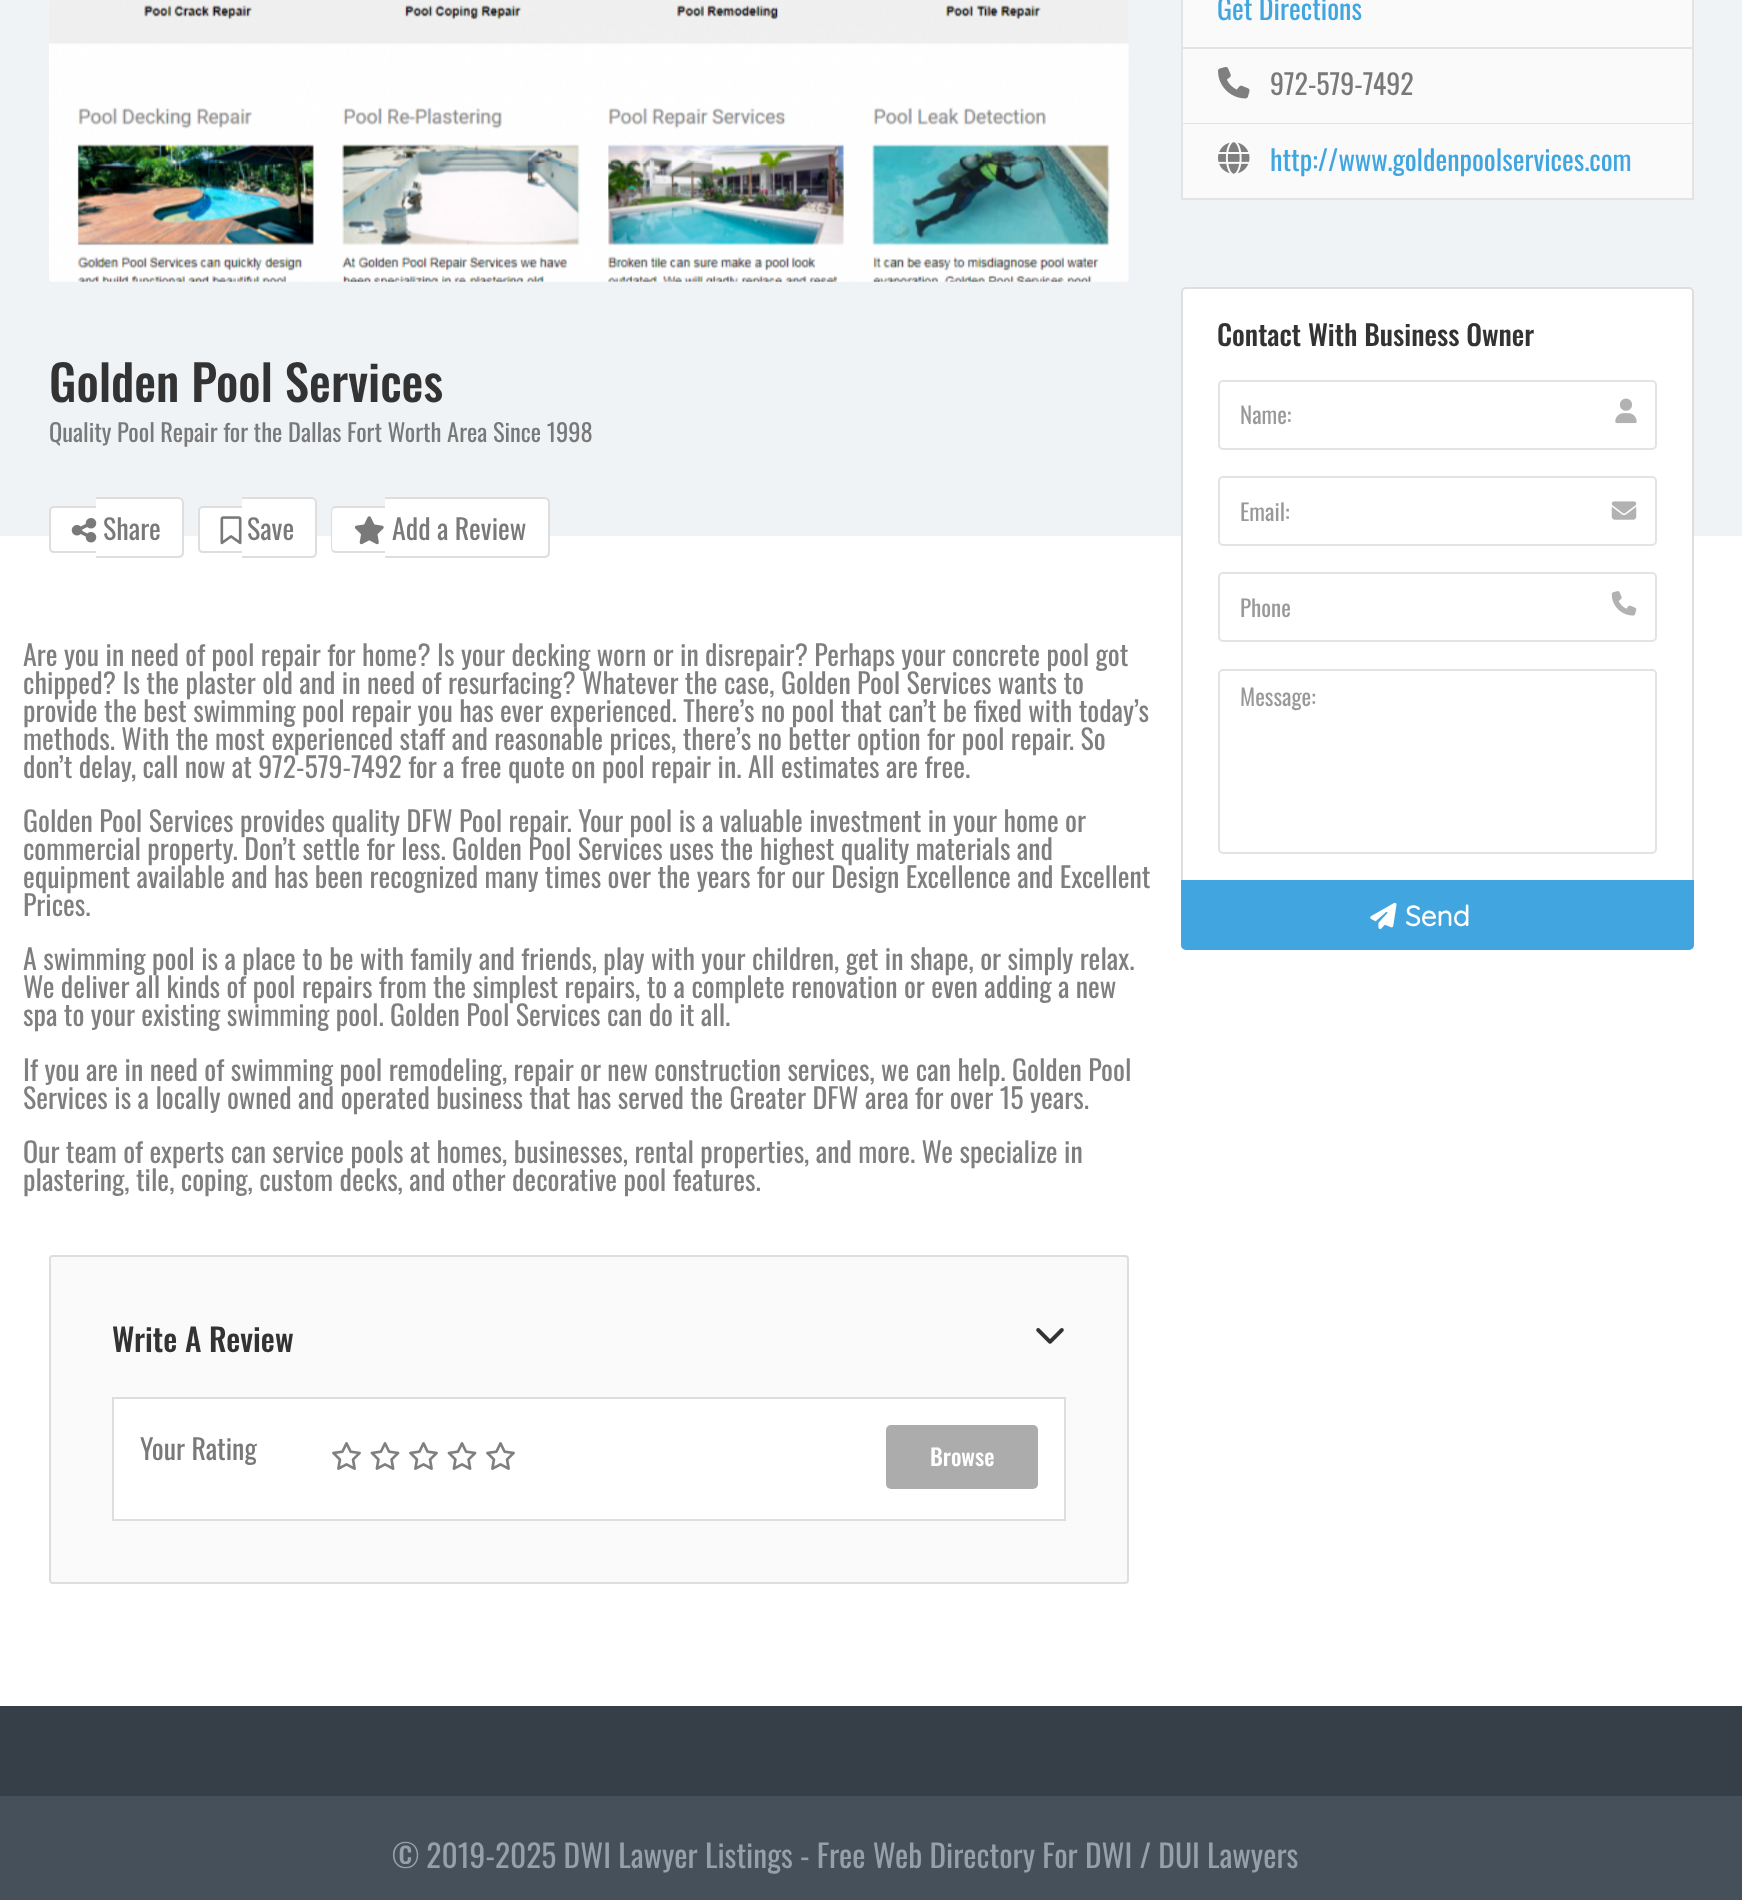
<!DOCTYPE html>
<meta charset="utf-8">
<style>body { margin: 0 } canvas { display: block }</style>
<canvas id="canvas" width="1742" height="1900"></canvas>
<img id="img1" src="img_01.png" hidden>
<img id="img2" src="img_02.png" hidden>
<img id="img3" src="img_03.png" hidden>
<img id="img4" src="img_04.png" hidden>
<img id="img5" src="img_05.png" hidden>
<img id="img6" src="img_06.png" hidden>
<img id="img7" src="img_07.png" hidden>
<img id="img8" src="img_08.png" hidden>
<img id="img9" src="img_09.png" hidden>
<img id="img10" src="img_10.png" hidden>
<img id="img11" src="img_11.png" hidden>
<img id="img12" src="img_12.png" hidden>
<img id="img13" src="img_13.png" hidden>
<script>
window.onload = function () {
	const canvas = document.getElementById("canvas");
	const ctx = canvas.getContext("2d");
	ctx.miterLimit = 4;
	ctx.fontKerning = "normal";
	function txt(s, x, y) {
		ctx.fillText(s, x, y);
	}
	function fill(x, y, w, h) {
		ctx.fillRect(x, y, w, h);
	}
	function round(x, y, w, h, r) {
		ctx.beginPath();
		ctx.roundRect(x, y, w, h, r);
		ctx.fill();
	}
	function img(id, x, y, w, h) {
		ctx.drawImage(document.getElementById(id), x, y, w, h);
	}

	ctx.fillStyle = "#FFFFFF";
	fill(0, 0, 1742, 1900);
	ctx.fillStyle = "#F0F3F6";
	fill(0, 0, 1742, 536);
	ctx.fillStyle = "#E3E3E3";
	fill(1692, 0, 2, 200);
	fill(1181, 198, 513, 2);
	fill(1181, 0, 2, 200);
	ctx.fillStyle = "#FAFAFA";
	fill(1183, 0, 509, 47);
	ctx.fillStyle = "#E3E3E3";
	fill(1183, 47, 509, 2);
	ctx.fillStyle = "#FAFAFA";
	fill(1183, 49, 509, 74);
	ctx.fillStyle = "#E3E3E3";
	fill(1183, 123, 509, 1);
	img("img1", 1218, 67, 32, 32);
	ctx.fillStyle = "#FAFAFA";
	fill(1183, 124, 509, 74);
	img("img2", 1218, 142, 32, 32);
	ctx.fillStyle = "#FFFFFF";
	ctx.beginPath();
	ctx.roundRect(1182, 288, 511, 661, 4);
	ctx.fill();
	ctx.strokeStyle = "#DEDEDE";
	ctx.lineWidth = 2;
	ctx.stroke();
	ctx.beginPath();
	ctx.roundRect(1219, 381, 437, 68, 4);
	ctx.strokeStyle = "#E3E3E3";
	ctx.stroke();
	img("img3", 1615, 398, 22, 26);
	ctx.beginPath();
	ctx.roundRect(1219, 477, 437, 68, 4);
	ctx.stroke();
	img("img4", 1611, 501, 26, 19);
	ctx.beginPath();
	ctx.roundRect(1219, 573, 437, 68, 4);
	ctx.stroke();
	img("img5", 1611, 591, 26, 25);
	ctx.beginPath();
	ctx.roundRect(1219, 670, 437, 183, 4);
	ctx.stroke();
	ctx.fillStyle = "#41A6DF";
	ctx.beginPath();
	ctx.roundRect(1182, 881, 511, 68, [0, 0, 4, 4]);
	ctx.fill();
	ctx.strokeStyle = "#41A6DF";
	ctx.stroke();
	img("img6", 1370, 902, 27, 27);
	ctx.fillStyle = "#FAFAFA";
	ctx.beginPath();
	ctx.roundRect(50, 1256, 1078, 327, 3);
	ctx.fill();
	ctx.strokeStyle = "#DEDEDE";
	ctx.stroke();
	img("img7", 1036, 1328, 28, 16);
	ctx.fillStyle = "#FFFFFF";
	ctx.beginPath();
	ctx.rect(113, 1398, 952, 122);
	ctx.fill();
	ctx.stroke();
	img("img8", 332, 1442, 29, 28);
	img("img9", 370, 1442, 30, 28);
	img("img8", 409, 1442, 29, 28);
	img("img9", 447, 1442, 30, 28);
	img("img8", 486, 1442, 29, 28);
	ctx.fillStyle = "#ACACAC";
	round(886, 1425, 152, 64, 5);
	img("img10", 49, 0, 1080, 282);
	ctx.fillStyle = "#FFFFFF";
	ctx.beginPath();
	ctx.roundRect(49, 506, 47, 47, [5, 0, 0, 5]);
	ctx.fill();
	ctx.fillStyle = "#DEDEDE";
	ctx.beginPath();
	ctx.moveTo(54, 506);
	ctx.lineTo(96, 506);
	ctx.lineTo(96, 553);
	ctx.lineTo(54, 553);
	ctx.bezierCurveTo(51, 553, 49, 551, 49, 548);
	ctx.lineTo(49, 511);
	ctx.bezierCurveTo(49, 508, 51, 506, 54, 506);
	ctx.closePath();
	ctx.moveTo(54, 508);
	ctx.lineTo(96, 508);
	ctx.lineTo(96, 551);
	ctx.lineTo(54, 551);
	ctx.bezierCurveTo(52, 551, 51, 550, 51, 548);
	ctx.lineTo(51, 511);
	ctx.bezierCurveTo(51, 509, 52, 508, 54, 508);
	ctx.closePath();
	ctx.fill("evenodd");
	ctx.fillStyle = "#FFFFFF";
	ctx.beginPath();
	ctx.roundRect(96, 497, 88, 61, [0, 5, 5, 0]);
	ctx.fill();
	ctx.fillStyle = "#DEDEDE";
	ctx.beginPath();
	ctx.moveTo(96, 497);
	ctx.lineTo(178, 497);
	ctx.bezierCurveTo(181, 497, 184, 499, 184, 502);
	ctx.lineTo(184, 553);
	ctx.bezierCurveTo(184, 556, 181, 558, 178, 558);
	ctx.lineTo(96, 558);
	ctx.closePath();
	ctx.moveTo(96, 499);
	ctx.lineTo(178, 499);
	ctx.bezierCurveTo(180, 499, 182, 500, 182, 502);
	ctx.lineTo(182, 553);
	ctx.bezierCurveTo(182, 555, 180, 556, 178, 556);
	ctx.lineTo(96, 556);
	ctx.closePath();
	ctx.fill("evenodd");
	img("img11", 71, 518, 26, 25);
	ctx.fillStyle = "#FFFFFF";
	ctx.beginPath();
	ctx.roundRect(198, 506, 44, 47, [5, 0, 0, 5]);
	ctx.fill();
	ctx.fillStyle = "#DEDEDE";
	ctx.beginPath();
	ctx.moveTo(203, 506);
	ctx.lineTo(242, 506);
	ctx.lineTo(242, 553);
	ctx.lineTo(203, 553);
	ctx.bezierCurveTo(200, 553, 198, 551, 198, 548);
	ctx.lineTo(198, 511);
	ctx.bezierCurveTo(198, 508, 200, 506, 203, 506);
	ctx.closePath();
	ctx.moveTo(203, 508);
	ctx.lineTo(242, 508);
	ctx.lineTo(242, 551);
	ctx.lineTo(203, 551);
	ctx.bezierCurveTo(201, 551, 200, 550, 200, 548);
	ctx.lineTo(200, 511);
	ctx.bezierCurveTo(200, 509, 201, 508, 203, 508);
	ctx.closePath();
	ctx.fill("evenodd");
	ctx.fillStyle = "#FFFFFF";
	ctx.beginPath();
	ctx.roundRect(242, 497, 75, 61, [0, 5, 5, 0]);
	ctx.fill();
	ctx.fillStyle = "#DEDEDE";
	ctx.beginPath();
	ctx.moveTo(242, 497);
	ctx.lineTo(312, 497);
	ctx.bezierCurveTo(314, 497, 317, 499, 317, 502);
	ctx.lineTo(317, 553);
	ctx.bezierCurveTo(317, 556, 314, 558, 312, 558);
	ctx.lineTo(242, 558);
	ctx.closePath();
	ctx.moveTo(242, 499);
	ctx.lineTo(312, 499);
	ctx.bezierCurveTo(313, 499, 315, 500, 315, 502);
	ctx.lineTo(315, 553);
	ctx.bezierCurveTo(315, 555, 313, 556, 312, 556);
	ctx.lineTo(242, 556);
	ctx.closePath();
	ctx.fill("evenodd");
	img("img12", 220, 516, 22, 29);
	ctx.fillStyle = "#FFFFFF";
	ctx.beginPath();
	ctx.roundRect(331, 506, 54, 47, [5, 0, 0, 5]);
	ctx.fill();
	ctx.fillStyle = "#DEDEDE";
	ctx.beginPath();
	ctx.moveTo(336, 506);
	ctx.lineTo(385, 506);
	ctx.lineTo(385, 553);
	ctx.lineTo(336, 553);
	ctx.bezierCurveTo(333, 553, 331, 551, 331, 548);
	ctx.lineTo(331, 511);
	ctx.bezierCurveTo(331, 508, 333, 506, 336, 506);
	ctx.closePath();
	ctx.moveTo(336, 508);
	ctx.lineTo(385, 508);
	ctx.lineTo(385, 551);
	ctx.lineTo(336, 551);
	ctx.bezierCurveTo(334, 551, 332, 550, 332, 548);
	ctx.lineTo(332, 511);
	ctx.bezierCurveTo(332, 509, 334, 508, 336, 508);
	ctx.closePath();
	ctx.fill("evenodd");
	ctx.fillStyle = "#FFFFFF";
	ctx.beginPath();
	ctx.roundRect(385, 497, 165, 61, [0, 5, 5, 0]);
	ctx.fill();
	ctx.fillStyle = "#DEDEDE";
	ctx.beginPath();
	ctx.moveTo(385, 497);
	ctx.lineTo(544, 497);
	ctx.bezierCurveTo(547, 497, 550, 499, 550, 502);
	ctx.lineTo(550, 553);
	ctx.bezierCurveTo(550, 556, 547, 558, 544, 558);
	ctx.lineTo(385, 558);
	ctx.closePath();
	ctx.moveTo(385, 499);
	ctx.lineTo(544, 499);
	ctx.bezierCurveTo(546, 499, 548, 500, 548, 502);
	ctx.lineTo(548, 553);
	ctx.bezierCurveTo(548, 555, 546, 556, 544, 556);
	ctx.lineTo(385, 556);
	ctx.closePath();
	ctx.fill("evenodd");
	img("img13", 354, 516, 30, 29);
	ctx.fillStyle = "#363F48";
	fill(0, 1706, 1742, 90);
	ctx.fillStyle = "#45505B";
	fill(0, 1796, 1742, 104);
	ctx.font = "28px Oswald";
	ctx.fillStyle = "#41A6DF";
	txt("Get Directions", 1217, 20);
	ctx.fillStyle = "#797979";
	txt("972-579-7492", 1270, 95);
	ctx.fillStyle = "#41A6DF";
	txt("http://www.goldenpoolservices.com", 1270, 171);
	ctx.font = "500 28px Oswald";
	ctx.fillStyle = "#333333";
	txt("Contact With Business Owner", 1217, 346);
	ctx.font = "23px Oswald";
	ctx.fillStyle = "#999999";
	txt("Name:", 1240, 424);
	txt("Email:", 1240, 521);
	txt("Phone", 1240, 617);
	txt("Message:", 1240, 706);
	ctx.font = "bold 28px Quicksand";
	ctx.fillStyle = "#FFFFFF";
	txt("Send", 1405, 926);
	ctx.font = "28px Oswald";
	ctx.fillStyle = "#7F7F7F";
	txt("Are you in need of pool repair for home? Is your decking worn or in disrepair? Perhaps your concrete pool got", 23, 666);
	txt("chipped? Is the plaster old and in need of resurfacing? Whatever the case, Golden Pool Services wants to", 23, 694);
	txt("provide the best swimming pool repair you has ever experienced. There’s no pool that can’t be fixed with today’s", 23, 722);
	txt("methods. With the most experienced staff and reasonable prices, there’s no better option for pool repair. So", 23, 750);
	txt("don’t delay, call now at 972-579-7492 for a free quote on pool repair in. All estimates are free.", 23, 778);
	txt("Golden Pool Services provides quality DFW Pool repair. Your pool is a valuable investment in your home or", 23, 832);
	txt("commercial property. Don’t settle for less. Golden Pool Services uses the highest quality materials and", 23, 860);
	txt("equipment available and has been recognized many times over the years for our Design Excellence and Excellent", 23, 888);
	txt("Prices.", 23, 916);
	txt("A swimming pool is a place to be with family and friends, play with your children, get in shape, or simply relax.", 23, 970);
	txt("We deliver all kinds of pool repairs from the simplest repairs, to a complete renovation or even adding a new", 23, 998);
	txt("spa to your existing swimming pool. Golden Pool Services can do it all.", 23, 1026);
	txt("If you are in need of swimming pool remodeling, repair or new construction services, we can help. Golden Pool", 23, 1081);
	txt("Services is a locally owned and operated business that has served the Greater DFW area for over 15 years.", 23, 1109);
	txt("Our team of experts can service pools at homes, businesses, rental properties, and more. We specialize in", 23, 1163);
	txt("plastering, tile, coping, custom decks, and other decorative pool features.", 23, 1191);
	ctx.font = "500 31.5px Oswald";
	ctx.fillStyle = "#333333";
	txt("Write A Review", 112, 1352);
	ctx.font = "28px Oswald";
	ctx.fillStyle = "#797979";
	txt("Your Rating", 140, 1460);
	ctx.font = "500 23px Oswald";
	ctx.fillStyle = "#FFFFFF";
	txt("Browse", 930, 1466);
	ctx.font = "500 49px Oswald";
	ctx.fillStyle = "#333333";
	txt("Golden Pool Services", 49, 402);
	ctx.font = "24.5px Oswald";
	ctx.fillStyle = "#797979";
	txt("Quality Pool Repair for the Dallas Fort Worth Area Since 1998", 49, 442);
	ctx.font = "28px Oswald";
	txt("Share", 103, 540);
	txt("Save", 247, 540);
	txt("Add a Review", 392, 540);
	ctx.font = "31.5px Oswald";
	ctx.fillStyle = "#96A0A9";
	txt("© 2019-2025 DWI Lawyer Listings - Free Web Directory For DWI / DUI Lawyers", 392, 1868);
};
</script>
